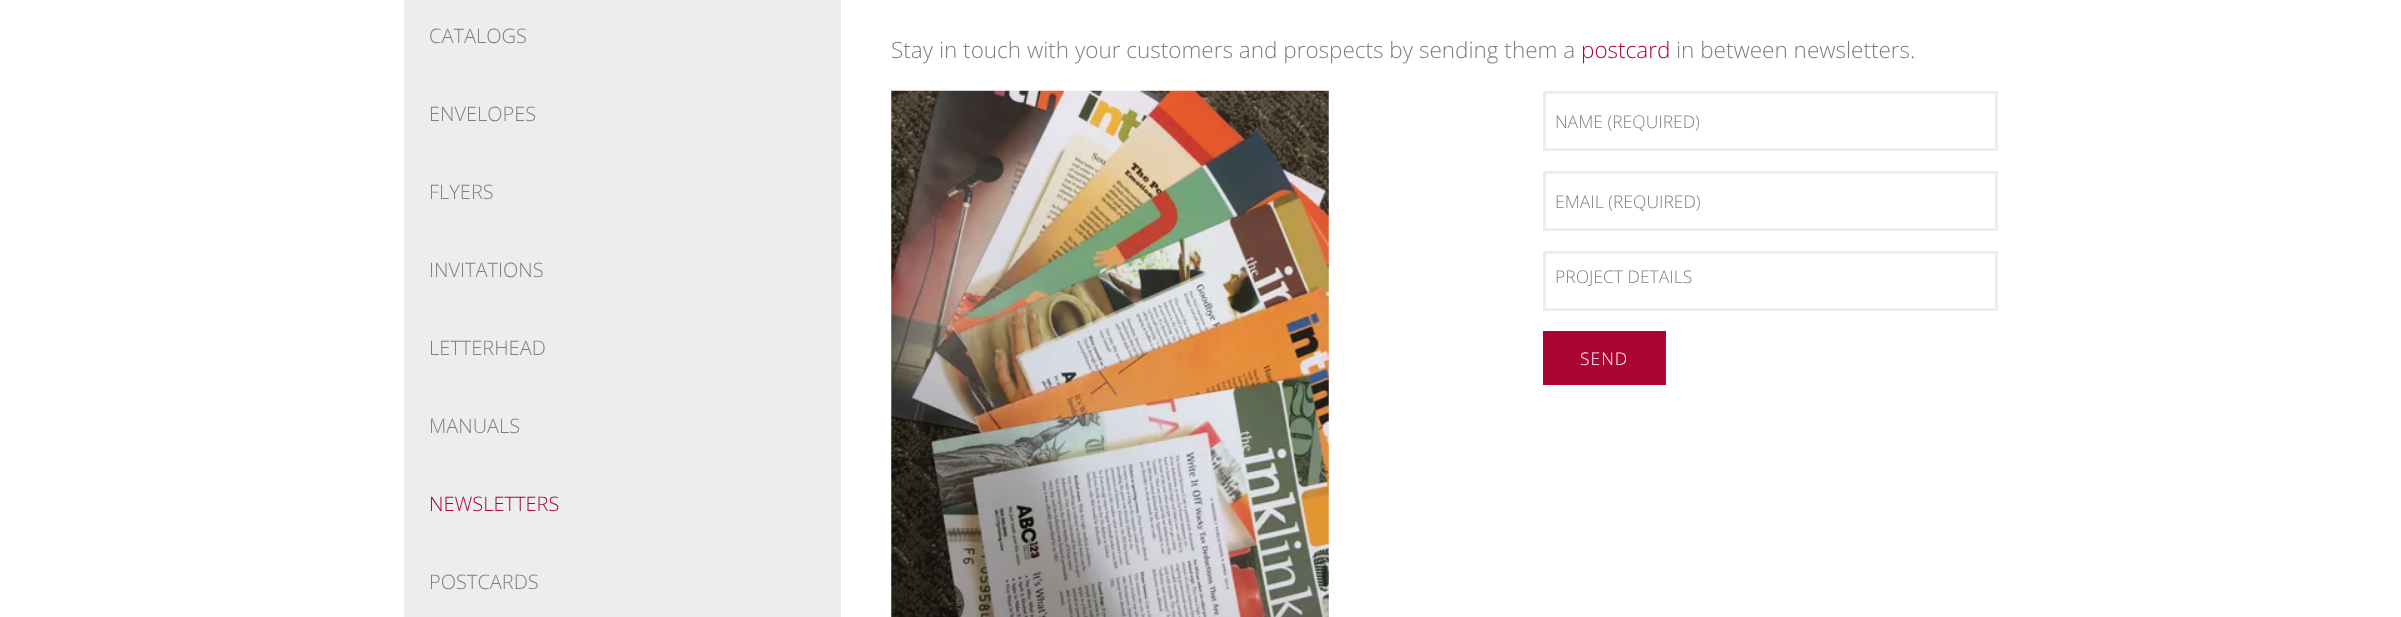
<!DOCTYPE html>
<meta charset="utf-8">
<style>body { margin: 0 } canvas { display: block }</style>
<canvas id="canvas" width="2401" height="617"></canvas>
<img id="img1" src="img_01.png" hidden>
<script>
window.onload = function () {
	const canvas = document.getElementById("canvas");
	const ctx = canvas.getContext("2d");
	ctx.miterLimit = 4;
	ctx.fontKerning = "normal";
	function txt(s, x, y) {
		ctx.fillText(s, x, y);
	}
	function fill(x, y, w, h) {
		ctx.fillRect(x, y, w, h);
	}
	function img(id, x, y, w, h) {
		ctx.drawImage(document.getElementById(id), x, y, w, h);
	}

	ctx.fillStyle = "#FFFFFF";
	fill(0, 0, 2401, 617);
	ctx.fillStyle = "#EDEDED";
	fill(404, 0, 437, 617);
	img("img1", 891, 90, 438, 527);
	ctx.strokeStyle = "#EDEDED";
	ctx.lineWidth = 3;
	ctx.strokeRect(1544.5, 92.5, 452, 57);
	ctx.strokeRect(1544.5, 172.5, 452, 57);
	ctx.strokeRect(1544.5, 252.5, 452, 57);
	ctx.fillStyle = "#AB0534";
	fill(1543, 331, 123, 54);
	ctx.font = "300 20px Open Sans";
	ctx.fillStyle = "#7F7F7F";
	txt("CATALOGS", 429, 43);
	txt("ENVELOPES", 429, 121);
	txt("FLYERS", 429, 199);
	txt("INVITATIONS", 429, 277);
	txt("LETTERHEAD", 429, 355);
	txt("MANUALS", 429, 433);
	ctx.fillStyle = "#AB0534";
	txt("NEWSLETTERS", 429, 511);
	ctx.fillStyle = "#7F7F7F";
	txt("POSTCARDS", 429, 589);
	ctx.font = "300 22.5px Open Sans";
	txt("Stay in touch with your customers and prospects by sending them a", 891, 58);
	ctx.fillStyle = "#AB0534";
	txt("postcard", 1581, 58);
	ctx.fillStyle = "#7F7F7F";
	txt("in between newsletters.", 1676, 58);
	ctx.font = "300 17.5px Open Sans";
	txt("NAME (REQUIRED)", 1555, 128);
	txt("EMAIL (REQUIRED)", 1555, 208);
	txt("PROJECT DETAILS", 1555, 283);
	ctx.letterSpacing = "1px";
	ctx.fillStyle = "#FFFFFF";
	txt("SEND", 1580, 365);
};
</script>
